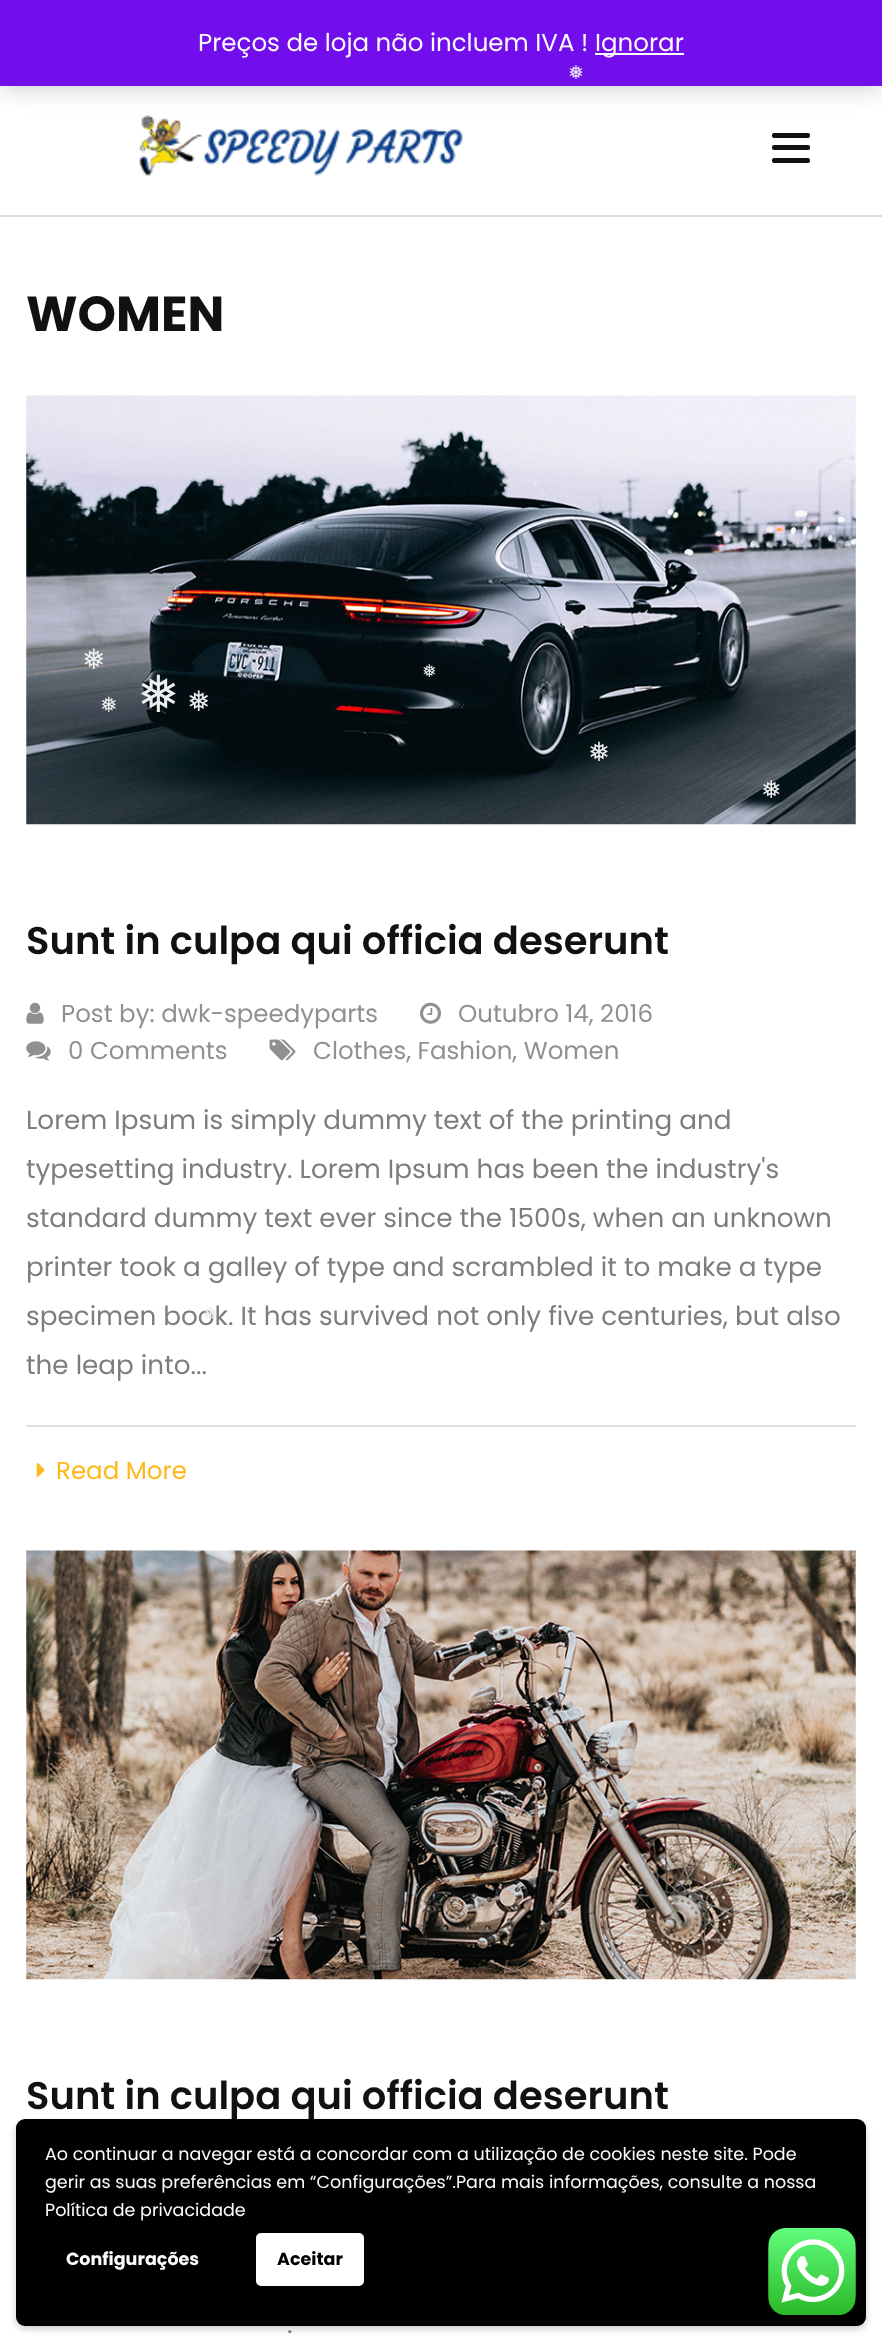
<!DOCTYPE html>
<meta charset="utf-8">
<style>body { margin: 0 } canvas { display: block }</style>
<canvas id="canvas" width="882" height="2341"></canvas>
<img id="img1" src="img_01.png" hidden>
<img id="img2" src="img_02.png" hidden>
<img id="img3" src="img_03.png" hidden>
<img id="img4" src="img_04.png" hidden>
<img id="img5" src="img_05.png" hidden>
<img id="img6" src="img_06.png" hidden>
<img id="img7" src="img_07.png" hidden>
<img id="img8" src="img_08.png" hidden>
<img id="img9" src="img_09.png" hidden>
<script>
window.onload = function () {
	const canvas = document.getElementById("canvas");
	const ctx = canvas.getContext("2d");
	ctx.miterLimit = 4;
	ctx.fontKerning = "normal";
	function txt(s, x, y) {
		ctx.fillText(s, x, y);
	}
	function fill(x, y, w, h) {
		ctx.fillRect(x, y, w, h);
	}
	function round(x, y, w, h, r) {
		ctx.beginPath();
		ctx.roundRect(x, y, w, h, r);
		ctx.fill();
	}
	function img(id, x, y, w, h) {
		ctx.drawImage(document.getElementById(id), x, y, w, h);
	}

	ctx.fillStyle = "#FFFFFF";
	fill(0, 0, 882, 2341);
	img("img1", 139, 115, 324, 61);
	ctx.fillStyle = "rgba(0, 0, 0, 0.2)";
	ctx.filter = "blur(12px)";
	ctx.beginPath();
	ctx.rect(0, 2, 882, 86);
	ctx.fill();
	ctx.filter = "none";
	ctx.fillStyle = "#720EEC";
	fill(0, 0, 882, 86);
	ctx.fillStyle = "#FCFBFE";
	fill(595, 53, 89, 2);
	ctx.fillStyle = "#DDDDDD";
	fill(0, 215, 882, 2);
	ctx.fillStyle = "#111111";
	round(772, 133, 38, 5, 2);
	round(772, 145, 38, 5, 2);
	round(772, 158, 38, 5, 2);
	img("img2", 26, 395, 830, 430);
	ctx.fillStyle = "#DDDDDD";
	fill(26, 1425, 830, 2);
	img("img3", 26, 1002, 18, 22);
	img("img4", 420, 1002, 21, 22);
	img("img5", 26, 1041, 25, 20);
	img("img6", 269, 1039, 27, 22);
	img("img7", 36, 1463, 9, 14);
	img("img8", 26, 1550, 830, 430);
	ctx.fillStyle = "rgba(0, 0, 0, 0.2)";
	ctx.filter = "blur(3.5px)";
	ctx.beginPath();
	ctx.roundRect(16, 2123, 850, 206, 9);
	ctx.fill();
	ctx.filter = "none";
	ctx.font = "24.5px Poppins";
	ctx.fillStyle = "#FCFBFE";
	txt("Preços de loja não incluem IVA !", 198, 51);
	txt("Ignorar", 595, 51);
	ctx.font = "19px DejaVu Sans";
	ctx.fillStyle = "#EFEFEF";
	txt("❅", 568, 79);
	ctx.font = "28px DejaVu Sans";
	txt("❅", 82, 669);
	ctx.font = "17.5px DejaVu Sans";
	txt("❅", 422, 677);
	ctx.font = "21px DejaVu Sans";
	txt("❅", 100, 712);
	ctx.font = "51px DejaVu Sans";
	txt("❅", 137, 712);
	ctx.font = "28px DejaVu Sans";
	txt("❅", 187, 711);
	ctx.font = "26.25px DejaVu Sans";
	txt("❅", 588, 761);
	ctx.font = "24.5px DejaVu Sans";
	txt("❅", 761, 798);
	ctx.font = "bold 49px Poppins";
	ctx.fillStyle = "#111111";
	txt("WOMEN", 26, 331);
	ctx.font = "600 38.5px Poppins";
	txt("Sunt in culpa qui officia deserunt", 26, 954);
	ctx.font = "24.5px Poppins";
	ctx.fillStyle = "#909090";
	txt("Post by: dwk-speedyparts", 61, 1022);
	txt("Outubro 14, 2016", 458, 1022);
	txt("0 Comments", 68, 1059);
	txt("Clothes, Fashion, Women", 313, 1059);
	ctx.font = "26.25px Poppins";
	ctx.fillStyle = "#7D7D7D";
	txt("Lorem Ipsum is simply dummy text of the printing and", 26, 1129);
	txt("typesetting industry. Lorem Ipsum has been the industry's", 26, 1178);
	txt("standard dummy text ever since the 1500s, when an unknown", 26, 1227);
	txt("printer took a galley of type and scrambled it to make a type", 26, 1276);
	txt("specimen book. It has survived not only five centuries, but also", 26, 1325);
	ctx.font = "17.5px DejaVu Sans";
	ctx.fillStyle = "#E8E8E8";
	txt("❅", 203, 1320);
	ctx.font = "26.25px Poppins";
	ctx.fillStyle = "#7D7D7D";
	txt("the leap into...", 26, 1374);
	ctx.font = "24.5px Poppins";
	ctx.fillStyle = "#FDB819";
	txt("Read More", 56, 1479);
	ctx.font = "600 38.5px Poppins";
	ctx.fillStyle = "#111111";
	txt("Sunt in culpa qui officia deserunt", 26, 2109);
	ctx.font = "26.25px Poppins";
	ctx.fillStyle = "#7D7D7D";
	txt(".", 287, 2333);
	ctx.fillStyle = "#000000";
	round(16, 2119, 850, 207, 9);
	ctx.font = "17.5px Poppins";
	ctx.fillStyle = "#FCFBFE";
	txt("Ao continuar a navegar está a concordar com a utilização de cookies neste site. Pode", 45, 2160);
	txt("gerir as suas preferências em “Configurações”.Para mais informações, consulte a nossa", 45, 2188);
	txt("Política de privacidade", 45, 2216);
	ctx.font = "bold 17.5px Poppins";
	txt("Configurações", 66, 2265);
	ctx.fillStyle = "#FFFFFF";
	ctx.beginPath();
	ctx.roundRect(257, 2234, 106, 51, 4);
	ctx.fill();
	ctx.strokeStyle = "#FFFFFF";
	ctx.lineWidth = 2;
	ctx.stroke();
	ctx.fillStyle = "#000000";
	txt("Aceitar", 277, 2265);
	img("img9", 768, 2228, 88, 87);
};
</script>
